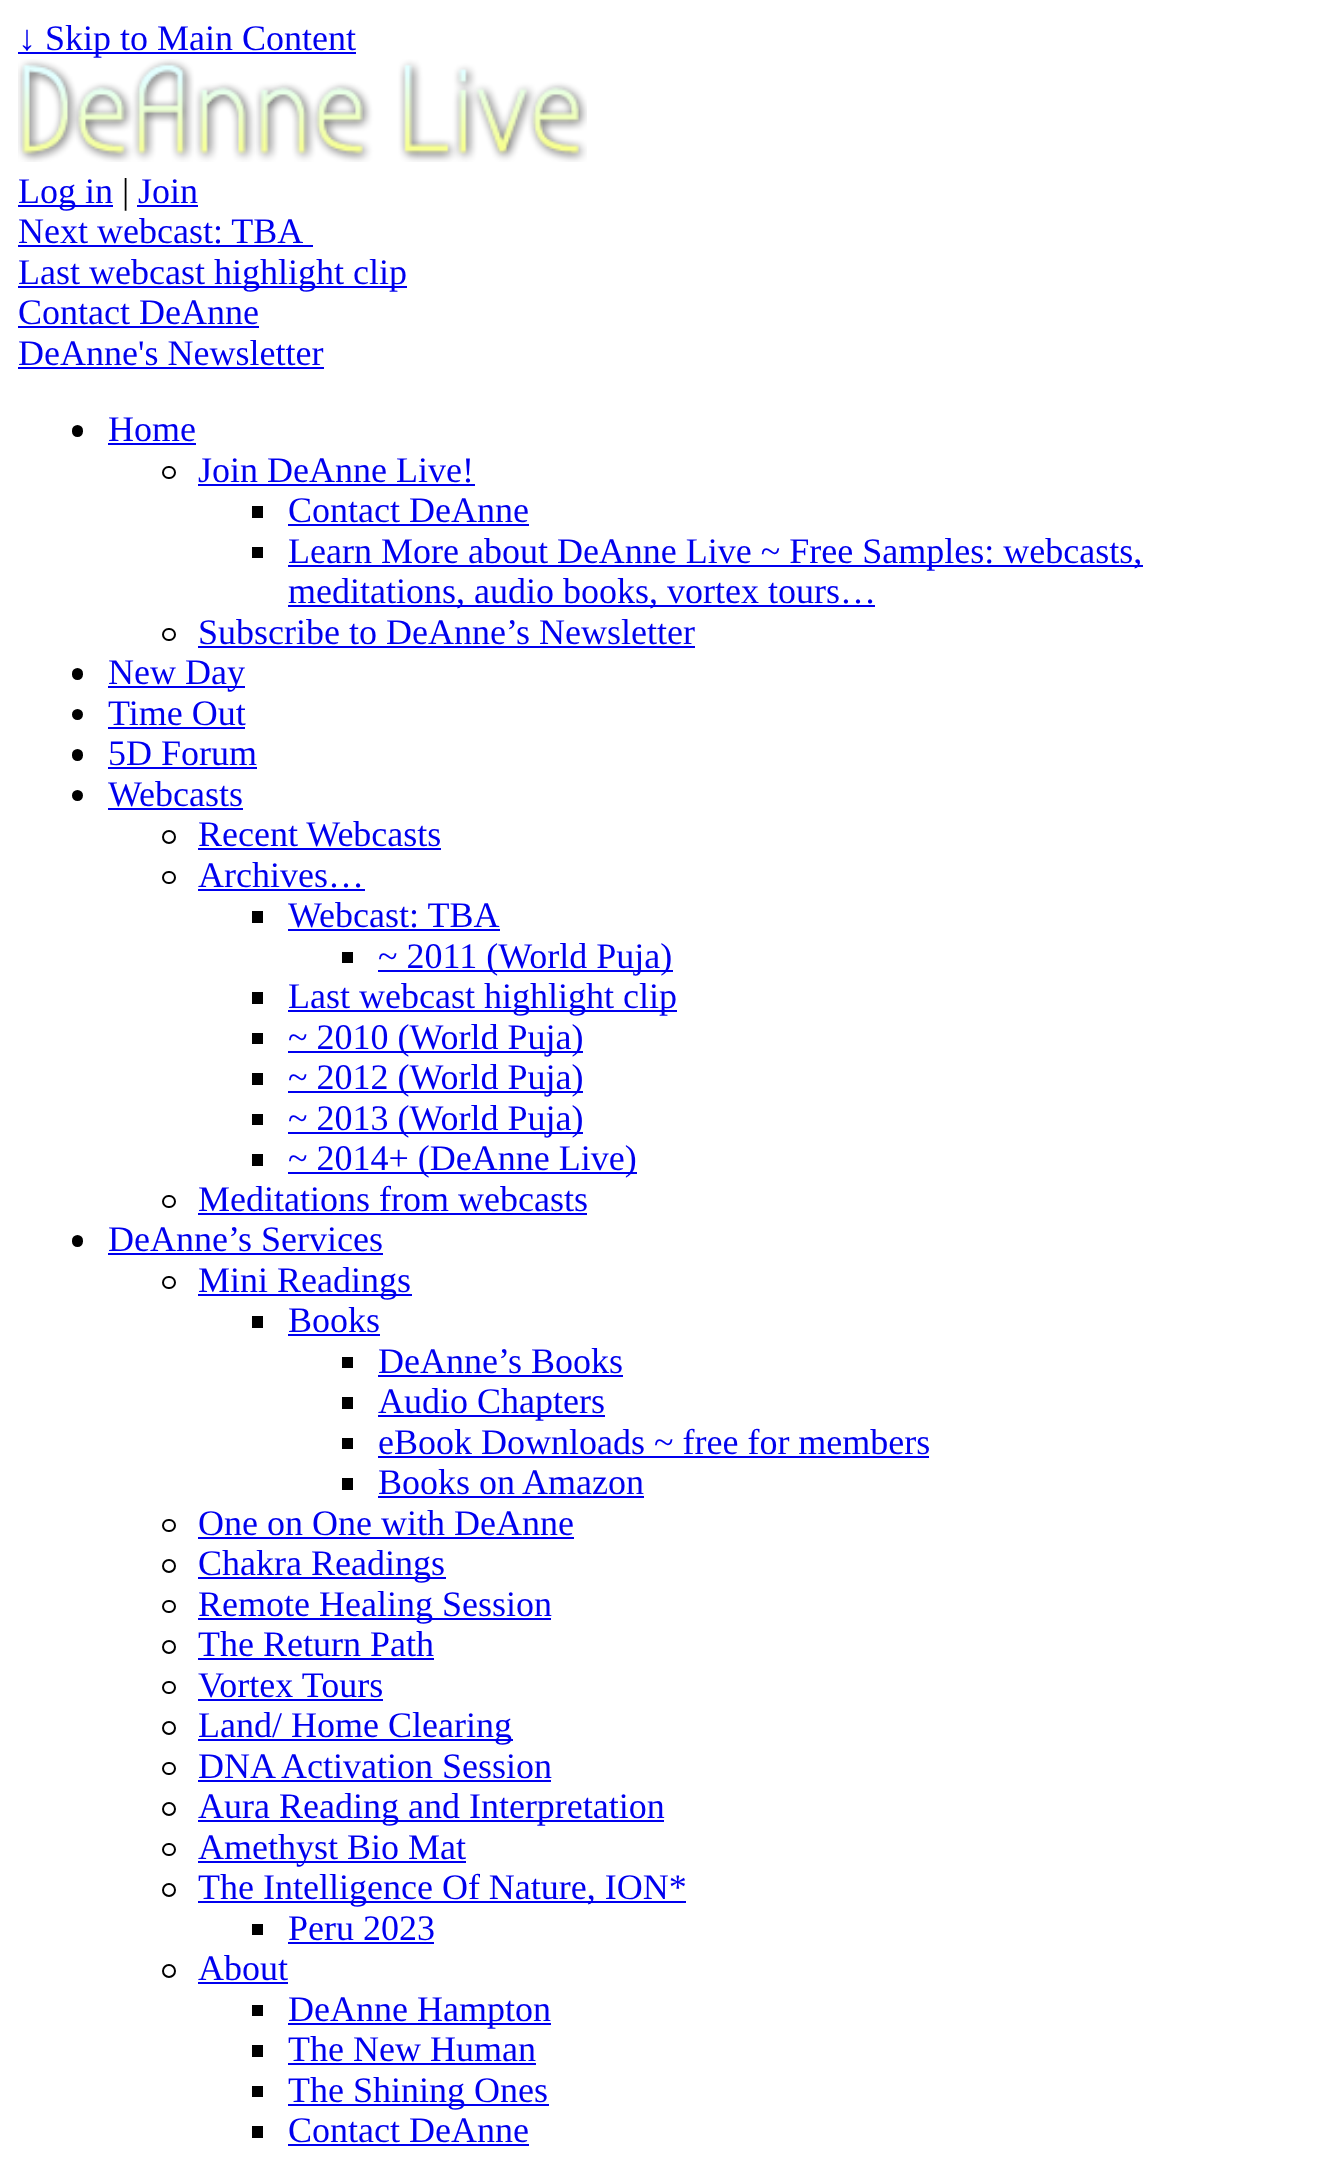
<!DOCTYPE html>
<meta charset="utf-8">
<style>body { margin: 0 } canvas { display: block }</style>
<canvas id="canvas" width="1320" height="2183"></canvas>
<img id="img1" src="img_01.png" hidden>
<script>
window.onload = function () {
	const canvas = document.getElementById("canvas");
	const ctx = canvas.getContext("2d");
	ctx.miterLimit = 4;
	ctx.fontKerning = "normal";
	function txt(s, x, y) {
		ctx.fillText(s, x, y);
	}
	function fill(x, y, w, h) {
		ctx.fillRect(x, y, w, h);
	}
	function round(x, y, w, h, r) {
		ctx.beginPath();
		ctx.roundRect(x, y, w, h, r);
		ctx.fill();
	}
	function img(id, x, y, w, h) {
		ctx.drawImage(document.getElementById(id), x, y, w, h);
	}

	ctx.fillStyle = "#FFFFFF";
	fill(0, 0, 1320, 2183);
	ctx.fillStyle = "#0000EE";
	fill(18, 52, 338, 2);
	img("img1", 18, 59, 569, 103);
	fill(18, 205, 95, 2);
	fill(137, 205, 61, 2);
	fill(18, 245, 295, 2);
	fill(18, 286, 389, 2);
	fill(18, 326, 241, 2);
	fill(18, 367, 306, 2);
	ctx.fillStyle = "#000000";
	round(72, 425, 11, 12, 5.5);
	ctx.fillStyle = "#0000EE";
	fill(108, 443, 88, 2);
	ctx.beginPath();
	ctx.roundRect(163, 467, 12, 11, 5.5);
	ctx.strokeStyle = "#000000";
	ctx.lineWidth = 2;
	ctx.stroke();
	fill(198, 484, 277, 2);
	ctx.fillStyle = "#000000";
	fill(252, 506, 11, 12);
	ctx.fillStyle = "#0000EE";
	fill(288, 524, 241, 2);
	ctx.fillStyle = "#000000";
	fill(252, 547, 11, 11);
	ctx.fillStyle = "#0000EE";
	fill(288, 565, 855, 2);
	fill(288, 605, 587, 2);
	ctx.beginPath();
	ctx.roundRect(163, 629, 12, 11, 5.5);
	ctx.stroke();
	fill(198, 646, 497, 2);
	ctx.fillStyle = "#000000";
	round(72, 668, 11, 12, 5.5);
	ctx.fillStyle = "#0000EE";
	fill(108, 686, 137, 2);
	ctx.fillStyle = "#000000";
	ctx.beginPath();
	ctx.arc(77.5, 714.5, 5.5, 0, Math.PI * 2);
	ctx.fill();
	ctx.fillStyle = "#0000EE";
	fill(108, 727, 137, 2);
	ctx.fillStyle = "#000000";
	round(72, 749, 11, 12, 5.5);
	ctx.fillStyle = "#0000EE";
	fill(108, 767, 149, 2);
	ctx.fillStyle = "#000000";
	ctx.beginPath();
	ctx.arc(77.5, 795.5, 5.5, 0, Math.PI * 2);
	ctx.fill();
	ctx.fillStyle = "#0000EE";
	fill(108, 808, 135, 2);
	ctx.beginPath();
	ctx.arc(169, 837, 6, 0, Math.PI * 2);
	ctx.stroke();
	fill(198, 848, 243, 2);
	ctx.beginPath();
	ctx.roundRect(163, 872, 12, 11, 5.5);
	ctx.stroke();
	fill(198, 889, 167, 2);
	ctx.fillStyle = "#000000";
	fill(252, 911, 11, 12);
	ctx.fillStyle = "#0000EE";
	fill(288, 929, 212, 2);
	ctx.fillStyle = "#000000";
	fill(342, 952, 11, 11);
	ctx.fillStyle = "#0000EE";
	fill(378, 970, 295, 2);
	ctx.fillStyle = "#000000";
	fill(252, 992, 11, 12);
	ctx.fillStyle = "#0000EE";
	fill(288, 1010, 389, 2);
	ctx.fillStyle = "#000000";
	fill(252, 1033, 11, 11);
	ctx.fillStyle = "#0000EE";
	fill(288, 1051, 295, 2);
	ctx.fillStyle = "#000000";
	fill(252, 1073, 11, 12);
	ctx.fillStyle = "#0000EE";
	fill(288, 1091, 295, 2);
	ctx.fillStyle = "#000000";
	fill(252, 1114, 11, 11);
	ctx.fillStyle = "#0000EE";
	fill(288, 1132, 295, 2);
	ctx.fillStyle = "#000000";
	fill(252, 1154, 11, 12);
	ctx.fillStyle = "#0000EE";
	fill(288, 1172, 349, 2);
	ctx.beginPath();
	ctx.roundRect(163, 1196, 12, 11, 5.5);
	ctx.stroke();
	fill(198, 1213, 389, 2);
	ctx.fillStyle = "#000000";
	round(72, 1235, 11, 12, 5.5);
	ctx.fillStyle = "#0000EE";
	fill(108, 1253, 275, 2);
	ctx.beginPath();
	ctx.roundRect(163, 1277, 12, 11, 5.5);
	ctx.stroke();
	fill(198, 1294, 214, 2);
	ctx.fillStyle = "#000000";
	fill(252, 1316, 11, 12);
	ctx.fillStyle = "#0000EE";
	fill(288, 1334, 92, 2);
	ctx.fillStyle = "#000000";
	fill(342, 1357, 11, 11);
	ctx.fillStyle = "#0000EE";
	fill(378, 1375, 245, 2);
	ctx.fillStyle = "#000000";
	fill(342, 1397, 11, 12);
	ctx.fillStyle = "#0000EE";
	fill(378, 1415, 227, 2);
	ctx.fillStyle = "#000000";
	fill(342, 1438, 11, 11);
	ctx.fillStyle = "#0000EE";
	fill(378, 1456, 551, 2);
	ctx.fillStyle = "#000000";
	fill(342, 1478, 11, 12);
	ctx.fillStyle = "#0000EE";
	fill(378, 1496, 266, 2);
	ctx.beginPath();
	ctx.roundRect(163, 1520, 12, 11, 5.5);
	ctx.stroke();
	fill(198, 1537, 376, 2);
	ctx.beginPath();
	ctx.arc(169, 1566, 6, 0, Math.PI * 2);
	ctx.stroke();
	fill(198, 1577, 248, 2);
	ctx.beginPath();
	ctx.roundRect(163, 1601, 12, 11, 5.5);
	ctx.stroke();
	fill(198, 1618, 353, 2);
	ctx.beginPath();
	ctx.arc(169, 1647, 6, 0, Math.PI * 2);
	ctx.stroke();
	fill(198, 1658, 236, 2);
	ctx.beginPath();
	ctx.roundRect(163, 1682, 12, 11, 5.5);
	ctx.stroke();
	fill(198, 1699, 185, 2);
	ctx.beginPath();
	ctx.arc(169, 1728, 6, 0, Math.PI * 2);
	ctx.stroke();
	fill(198, 1739, 315, 2);
	ctx.beginPath();
	ctx.roundRect(163, 1763, 12, 11, 5.5);
	ctx.stroke();
	fill(198, 1780, 353, 2);
	ctx.beginPath();
	ctx.arc(169, 1809, 6, 0, Math.PI * 2);
	ctx.stroke();
	fill(198, 1820, 466, 2);
	ctx.beginPath();
	ctx.roundRect(163, 1844, 12, 11, 5.5);
	ctx.stroke();
	fill(198, 1861, 268, 2);
	ctx.beginPath();
	ctx.arc(169, 1890, 6, 0, Math.PI * 2);
	ctx.stroke();
	fill(198, 1901, 488, 2);
	ctx.fillStyle = "#000000";
	fill(252, 1924, 11, 11);
	ctx.fillStyle = "#0000EE";
	fill(288, 1942, 146, 2);
	ctx.beginPath();
	ctx.arc(169, 1971, 6, 0, Math.PI * 2);
	ctx.stroke();
	fill(198, 1982, 90, 2);
	ctx.fillStyle = "#000000";
	fill(252, 2005, 11, 11);
	ctx.fillStyle = "#0000EE";
	fill(288, 2023, 263, 2);
	ctx.fillStyle = "#000000";
	fill(252, 2045, 11, 12);
	ctx.fillStyle = "#0000EE";
	fill(288, 2063, 248, 2);
	ctx.fillStyle = "#000000";
	fill(252, 2086, 11, 11);
	ctx.fillStyle = "#0000EE";
	fill(288, 2104, 261, 2);
	ctx.fillStyle = "#000000";
	fill(252, 2126, 11, 12);
	ctx.fillStyle = "#0000EE";
	fill(288, 2144, 241, 2);
	ctx.font = "36px Liberation Serif";
	txt("↓ Skip to Main Content", 18, 50);
	txt("Log in", 18, 203);
	ctx.fillStyle = "#000000";
	txt("|", 122, 203);
	ctx.fillStyle = "#0000EE";
	txt("Join", 138, 203);
	txt("Next webcast: TBA", 18, 243);
	txt("Last webcast highlight clip", 18, 284);
	txt("Contact DeAnne", 18, 324);
	txt("DeAnne's Newsletter", 18, 365);
	txt("Home", 108, 441);
	txt("Join DeAnne Live!", 198, 482);
	txt("Contact DeAnne", 288, 522);
	txt("Learn More about DeAnne Live ~ Free Samples: webcasts,", 288, 563);
	txt("meditations, audio books, vortex tours…", 288, 603);
	txt("Subscribe to DeAnne’s Newsletter", 198, 644);
	txt("New Day", 108, 684);
	txt("Time Out", 108, 725);
	txt("5D Forum", 108, 765);
	txt("Webcasts", 108, 806);
	txt("Recent Webcasts", 198, 846);
	txt("Archives…", 198, 887);
	txt("Webcast: TBA", 288, 927);
	txt("~ 2011 (World Puja)", 378, 968);
	txt("Last webcast highlight clip", 288, 1008);
	txt("~ 2010 (World Puja)", 288, 1049);
	txt("~ 2012 (World Puja)", 288, 1089);
	txt("~ 2013 (World Puja)", 288, 1130);
	txt("~ 2014+ (DeAnne Live)", 288, 1170);
	txt("Meditations from webcasts", 198, 1211);
	txt("DeAnne’s Services", 108, 1251);
	txt("Mini Readings", 198, 1292);
	txt("Books", 288, 1332);
	txt("DeAnne’s Books", 378, 1373);
	txt("Audio Chapters", 378, 1413);
	txt("eBook Downloads ~ free for members", 378, 1454);
	txt("Books on Amazon", 378, 1494);
	txt("One on One with DeAnne", 198, 1535);
	txt("Chakra Readings", 198, 1575);
	txt("Remote Healing Session", 198, 1616);
	txt("The Return Path", 198, 1656);
	txt("Vortex Tours", 198, 1697);
	txt("Land/ Home Clearing", 198, 1737);
	txt("DNA Activation Session", 198, 1778);
	txt("Aura Reading and Interpretation", 198, 1818);
	txt("Amethyst Bio Mat", 198, 1859);
	txt("The Intelligence Of Nature, ION*", 198, 1899);
	txt("Peru 2023", 288, 1940);
	txt("About", 198, 1980);
	txt("DeAnne Hampton", 288, 2021);
	txt("The New Human", 288, 2061);
	txt("The Shining Ones", 288, 2102);
	txt("Contact DeAnne", 288, 2142);
};
</script>
